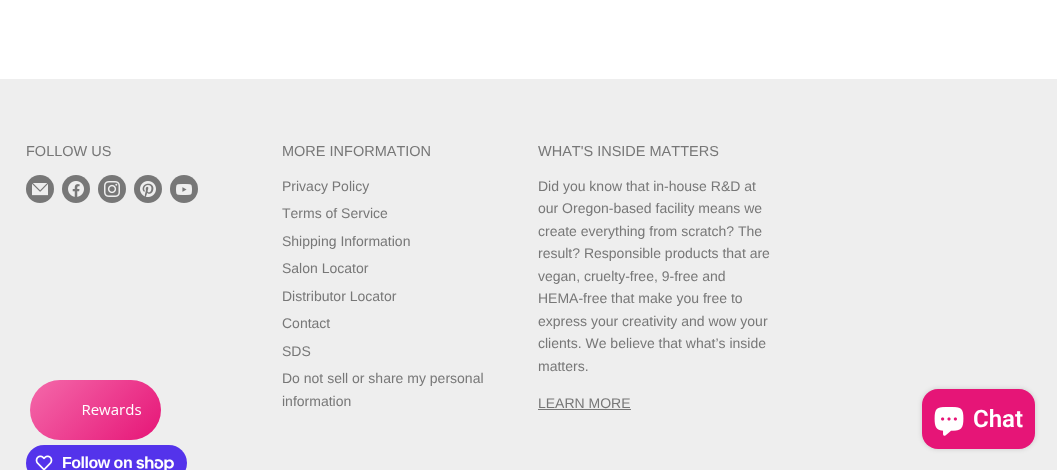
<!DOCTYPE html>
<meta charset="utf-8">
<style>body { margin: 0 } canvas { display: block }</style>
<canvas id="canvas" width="1057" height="470"></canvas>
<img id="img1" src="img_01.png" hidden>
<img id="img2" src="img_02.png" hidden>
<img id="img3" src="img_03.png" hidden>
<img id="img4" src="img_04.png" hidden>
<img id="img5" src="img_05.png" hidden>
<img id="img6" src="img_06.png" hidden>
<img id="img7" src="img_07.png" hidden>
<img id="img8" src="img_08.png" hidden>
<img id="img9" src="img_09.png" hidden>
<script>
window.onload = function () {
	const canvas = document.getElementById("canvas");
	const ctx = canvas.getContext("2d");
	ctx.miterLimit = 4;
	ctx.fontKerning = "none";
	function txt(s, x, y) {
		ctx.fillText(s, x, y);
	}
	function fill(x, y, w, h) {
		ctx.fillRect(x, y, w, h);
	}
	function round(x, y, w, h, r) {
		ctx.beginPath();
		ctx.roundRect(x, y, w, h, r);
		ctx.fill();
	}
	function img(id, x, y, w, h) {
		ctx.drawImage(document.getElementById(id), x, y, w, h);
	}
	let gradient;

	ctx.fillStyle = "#FFFFFF";
	fill(0, 0, 1057, 470);
	ctx.fillStyle = "#EEEEEE";
	fill(0, 79, 1057, 391);
	ctx.fillStyle = "#777777";
	ctx.beginPath();
	ctx.arc(40, 189, 14, 0, Math.PI * 2);
	ctx.fill();
	img("img1", 32, 183, 16, 13);
	ctx.beginPath();
	ctx.arc(76, 189, 14, 0, Math.PI * 2);
	ctx.fill();
	img("img2", 68, 181, 16, 16);
	ctx.beginPath();
	ctx.arc(112, 189, 14, 0, Math.PI * 2);
	ctx.fill();
	img("img3", 104, 181, 16, 16);
	ctx.beginPath();
	ctx.arc(148, 189, 14, 0, Math.PI * 2);
	ctx.fill();
	img("img4", 140, 181, 16, 16);
	ctx.beginPath();
	ctx.arc(184, 189, 14, 0, Math.PI * 2);
	ctx.fill();
	img("img5", 176, 184, 16, 11);
	fill(538, 409, 93, 1);
	ctx.fillStyle = "#5433EB";
	round(26, 445, 161, 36, 18);
	img("img6", 35, 455, 18, 15);
	img("img7", 136, 456, 38, 14);
	gradient = ctx.createLinearGradient(48, 362, 143, 458);
	gradient.addColorStop(0, "#F469AA");
	gradient.addColorStop(1, "#E61577");
	ctx.fillStyle = gradient;
	round(30, 380, 131, 60, 30);
	img("img8", 82, 404, 59, 11);
	ctx.fillStyle = "rgba(0, 0, 0, 0.15)";
	ctx.filter = "blur(2.5px)";
	ctx.beginPath();
	ctx.roundRect(922, 389, 113, 60, 16);
	ctx.fill();
	ctx.filter = "none";
	ctx.fillStyle = "#E61577";
	round(922, 389, 113, 60, 16);
	img("img9", 934, 407, 30, 29);
	ctx.font = "14.5px Liberation Sans";
	ctx.fillStyle = "#777777";
	txt("FOLLOW US", 26, 156);
	txt("MORE INFORMATION", 282, 156);
	ctx.font = "14px Liberation Sans";
	txt("Privacy Policy", 282, 191);
	txt("Terms of Service", 282, 218);
	txt("Shipping Information", 282, 246);
	txt("Salon Locator", 282, 273);
	txt("Distributor Locator", 282, 301);
	txt("Contact", 282, 328);
	txt("SDS", 282, 356);
	txt("Do not sell or share my personal", 282, 383);
	txt("information", 282, 406);
	ctx.font = "14.5px Liberation Sans";
	txt("WHAT'S INSIDE MATTERS", 538, 156);
	ctx.font = "14px Liberation Sans";
	txt("Did you know that in-house R&D at", 538, 191);
	txt("our Oregon-based facility means we", 538, 213);
	txt("create everything from scratch? The", 538, 236);
	txt("result? Responsible products that are", 538, 258);
	txt("vegan, cruelty-free, 9-free and", 538, 281);
	txt("HEMA-free that make you free to", 538, 303);
	txt("express your creativity and wow your", 538, 326);
	txt("clients. We believe that what’s inside", 538, 348);
	txt("matters.", 538, 371);
	txt("LEARN MORE", 538, 408);
	ctx.letterSpacing = "-0.5px";
	ctx.font = "bold 16px Liberation Sans";
	ctx.fillStyle = "#FFFFFF";
	txt("Follow on", 62, 468);
	ctx.letterSpacing = "0px";
	ctx.font = "600 24px Roboto";
	txt("Chat", 973, 427);
};
</script>
